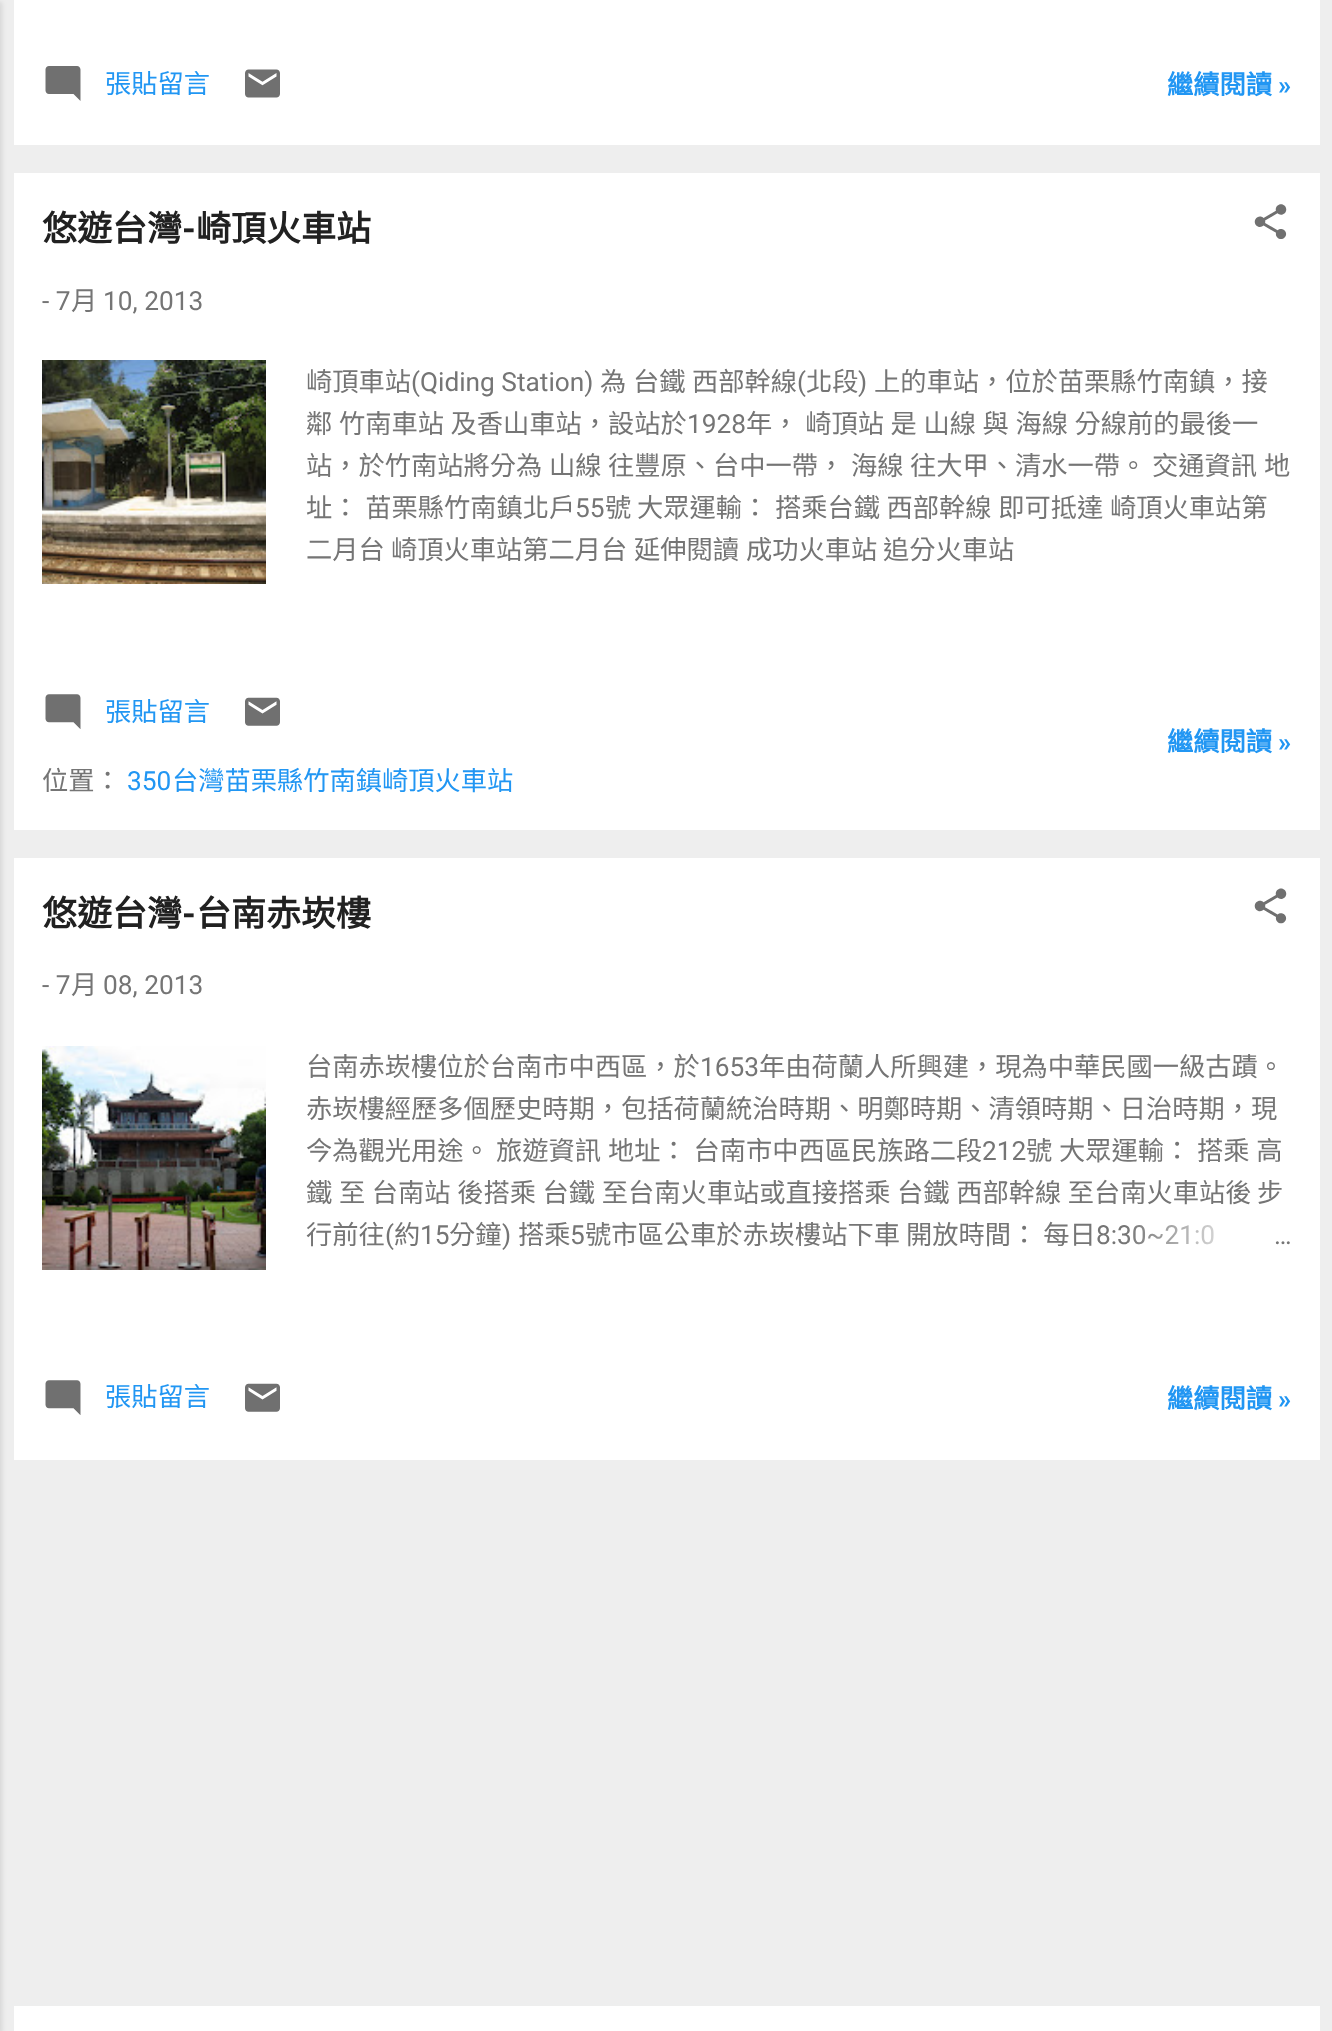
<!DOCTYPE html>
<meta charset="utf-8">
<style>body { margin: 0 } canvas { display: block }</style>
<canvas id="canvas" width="1332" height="2031"></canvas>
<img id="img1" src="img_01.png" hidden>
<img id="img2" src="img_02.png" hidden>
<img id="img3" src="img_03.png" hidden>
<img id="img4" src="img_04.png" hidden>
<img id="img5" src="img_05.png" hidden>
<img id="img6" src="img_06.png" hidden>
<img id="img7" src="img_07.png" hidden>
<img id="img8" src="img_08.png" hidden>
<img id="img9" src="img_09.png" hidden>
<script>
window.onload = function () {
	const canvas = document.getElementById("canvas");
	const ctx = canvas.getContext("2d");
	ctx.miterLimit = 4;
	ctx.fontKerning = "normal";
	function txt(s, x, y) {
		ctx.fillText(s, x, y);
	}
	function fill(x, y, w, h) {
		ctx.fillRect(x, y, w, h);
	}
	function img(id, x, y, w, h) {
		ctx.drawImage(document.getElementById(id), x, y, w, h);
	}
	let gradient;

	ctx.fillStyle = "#EEEEEE";
	fill(0, 0, 1332, 2031);
	ctx.fillStyle = "rgba(0, 0, 0, 0.1)";
	ctx.filter = "blur(2.5px)";
	ctx.beginPath();
	ctx.rect(-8, 2, 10, 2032);
	ctx.fill();
	ctx.filter = "none";
	ctx.fillStyle = "#FFFFFF";
	fill(14, 0, 1306, 145);
	img("img1", 45, 66, 36, 35);
	img("img2", 245, 69, 35, 29);
	fill(14, 173, 1306, 657);
	img("img3", 1254, 204, 33, 35);
	img("img4", 42, 360, 224, 224);
	img("img5", 45, 694, 36, 35);
	img("img6", 245, 697, 35, 29);
	fill(14, 858, 1306, 602);
	img("img7", 1254, 888, 33, 36);
	img("img8", 42, 1046, 224, 224);
	img("img9", 45, 1380, 36, 35);
	img("img6", 245, 1383, 35, 29);
	fill(14, 2006, 1306, 25);
	ctx.font = "26.25px Noto Sans CJK TC";
	ctx.fillStyle = "#2196F3";
	txt("張貼留言", 105, 93);
	ctx.font = "bold 26.25px Noto Sans CJK TC";
	txt("繼續閱讀", 1167, 94);
	ctx.font = "bold 26.25px Roboto";
	txt("»", 1278, 94);
	ctx.font = "bold 35px Noto Sans CJK TC";
	ctx.fillStyle = "#212121";
	txt("悠遊台灣", 42, 241);
	ctx.font = "bold 35px Roboto";
	txt("-", 182, 241);
	ctx.font = "bold 35px Noto Sans CJK TC";
	txt("崎頂火車站", 196, 241);
	ctx.font = "26.25px Roboto";
	ctx.fillStyle = "#757575";
	txt("- 7", 42, 310);
	ctx.font = "26.25px Noto Sans CJK TC";
	txt("月", 71, 310);
	ctx.font = "26.25px Roboto";
	txt("10, 2013", 103, 310);
	ctx.font = "26.25px Noto Sans CJK TC";
	txt("崎頂車站", 306, 391);
	ctx.font = "26.25px Roboto";
	txt("(Qiding Station)", 411, 391);
	ctx.font = "26.25px Noto Sans CJK TC";
	txt("為", 600, 391);
	txt("台鐵", 633, 391);
	txt("西部幹線", 692, 391);
	ctx.font = "26.25px Roboto";
	txt("(", 797, 391);
	ctx.font = "26.25px Noto Sans CJK TC";
	txt("北段", 806, 391);
	ctx.font = "26.25px Roboto";
	txt(")", 858, 391);
	ctx.font = "26.25px Noto Sans CJK TC";
	txt("上的車站，位於苗栗縣竹南鎮，接", 874, 391);
	ctx.wordSpacing = "0.75px";
	txt("鄰 竹南車站 及香山車站，設站於", 306, 433);
	ctx.wordSpacing = "0px";
	ctx.font = "26.25px Roboto";
	txt("1928", 687, 433);
	ctx.wordSpacing = "0.75px";
	ctx.font = "26.25px Noto Sans CJK TC";
	txt("年， 崎頂站 是 山線 與 海線 分線前的最後一", 746, 433);
	txt("站，於竹南站將分為 山線 往豐原、台中一帶， 海線 往大甲、清水一帶。", 306, 475);
	ctx.wordSpacing = "0px";
	txt("交通資訊", 1152, 475);
	txt("地", 1264, 475);
	ctx.wordSpacing = "0.75px";
	txt("址： 苗栗縣竹南鎮北戶", 306, 517);
	ctx.wordSpacing = "0px";
	ctx.font = "26.25px Roboto";
	txt("55", 575, 517);
	ctx.font = "26.25px Noto Sans CJK TC";
	txt("號", 605, 517);
	ctx.wordSpacing = "0.75px";
	txt("大眾運輸： 搭乘台鐵 西部幹線 即可抵達", 637, 517);
	ctx.wordSpacing = "0px";
	txt("崎頂火車站第", 1110, 517);
	txt("二月台", 306, 559);
	txt("崎頂火車站第二月台", 391, 559);
	txt("延伸閱讀", 634, 559);
	txt("成功火車站", 746, 559);
	txt("追分火車站", 883, 559);
	ctx.fillStyle = "#2196F3";
	txt("張貼留言", 105, 721);
	ctx.fillStyle = "#757575";
	txt("位置：", 42, 790);
	ctx.font = "26.25px Roboto";
	ctx.fillStyle = "#2196F3";
	txt("350", 127, 790);
	ctx.font = "26.25px Noto Sans CJK TC";
	txt("台灣苗栗縣竹南鎮崎頂火車站", 172, 790);
	ctx.font = "bold 26.25px Noto Sans CJK TC";
	txt("繼續閱讀", 1167, 751);
	ctx.font = "bold 26.25px Roboto";
	txt("»", 1278, 751);
	ctx.font = "bold 35px Noto Sans CJK TC";
	ctx.fillStyle = "#212121";
	txt("悠遊台灣", 42, 926);
	ctx.font = "bold 35px Roboto";
	txt("-", 182, 926);
	ctx.font = "bold 35px Noto Sans CJK TC";
	txt("台南赤崁樓", 196, 926);
	ctx.font = "26.25px Roboto";
	ctx.fillStyle = "#757575";
	txt("- 7", 42, 994);
	ctx.font = "26.25px Noto Sans CJK TC";
	txt("月", 71, 994);
	ctx.font = "26.25px Roboto";
	txt("08, 2013", 103, 994);
	ctx.font = "26.25px Noto Sans CJK TC";
	txt("台南赤崁樓位於台南市中西區，於", 306, 1076);
	ctx.font = "26.25px Roboto";
	txt("1653", 700, 1076);
	ctx.font = "26.25px Noto Sans CJK TC";
	txt("年由荷蘭人所興建，現為中華民國一級古蹟。", 759, 1076);
	txt("赤崁樓經歷多個歷史時期，包括荷蘭統治時期、明鄭時期、清領時期、日治時期，現", 306, 1118);
	txt("今為觀光用途。", 306, 1160);
	txt("旅遊資訊", 496, 1160);
	ctx.wordSpacing = "0.75px";
	txt("地址： 台南市中西區民族路二段", 608, 1160);
	ctx.wordSpacing = "0px";
	ctx.font = "26.25px Roboto";
	txt("212", 982, 1160);
	ctx.font = "26.25px Noto Sans CJK TC";
	txt("號", 1026, 1160);
	txt("大眾運輸：", 1059, 1160);
	ctx.wordSpacing = "0.75px";
	txt("搭乘 高", 1197, 1160);
	txt("鐵 至 台南站 後搭乘 台鐵 至台南火車站或直接搭乘 台鐵 西部幹線 至台南火車站後", 306, 1202);
	ctx.wordSpacing = "0px";
	txt("步", 1257, 1202);
	txt("行前往", 306, 1244);
	ctx.font = "26.25px Roboto";
	txt("(", 385, 1244);
	ctx.font = "26.25px Noto Sans CJK TC";
	txt("約", 394, 1244);
	ctx.font = "26.25px Roboto";
	txt("15", 420, 1244);
	ctx.font = "26.25px Noto Sans CJK TC";
	txt("分鐘", 449, 1244);
	ctx.font = "26.25px Roboto";
	txt(")", 502, 1244);
	ctx.font = "26.25px Noto Sans CJK TC";
	txt("搭乘", 518, 1244);
	ctx.font = "26.25px Roboto";
	txt("5", 570, 1244);
	ctx.font = "26.25px Noto Sans CJK TC";
	txt("號市區公車於赤崁樓站下車", 585, 1244);
	txt("開放時間： 每日", 906, 1244);
	ctx.font = "26.25px Roboto";
	txt("8:30~21:0", 1096, 1244);
	gradient = ctx.createLinearGradient(1292, 1236, 1124, 1236);
	gradient.addColorStop(0, "#FFFFFF");
	gradient.addColorStop(0.2, "#FFFFFF");
	gradient.addColorStop(1, "rgba(255, 255, 255, 0)");
	ctx.fillStyle = gradient;
	fill(1127, 1225, 87, 20);
	ctx.fillStyle = "#757575";
	txt("…", 1274, 1244);
	ctx.font = "26.25px Noto Sans CJK TC";
	ctx.fillStyle = "#2196F3";
	txt("張貼留言", 105, 1406);
	ctx.font = "bold 26.25px Noto Sans CJK TC";
	txt("繼續閱讀", 1167, 1408);
	ctx.font = "bold 26.25px Roboto";
	txt("»", 1278, 1408);
};
</script>
